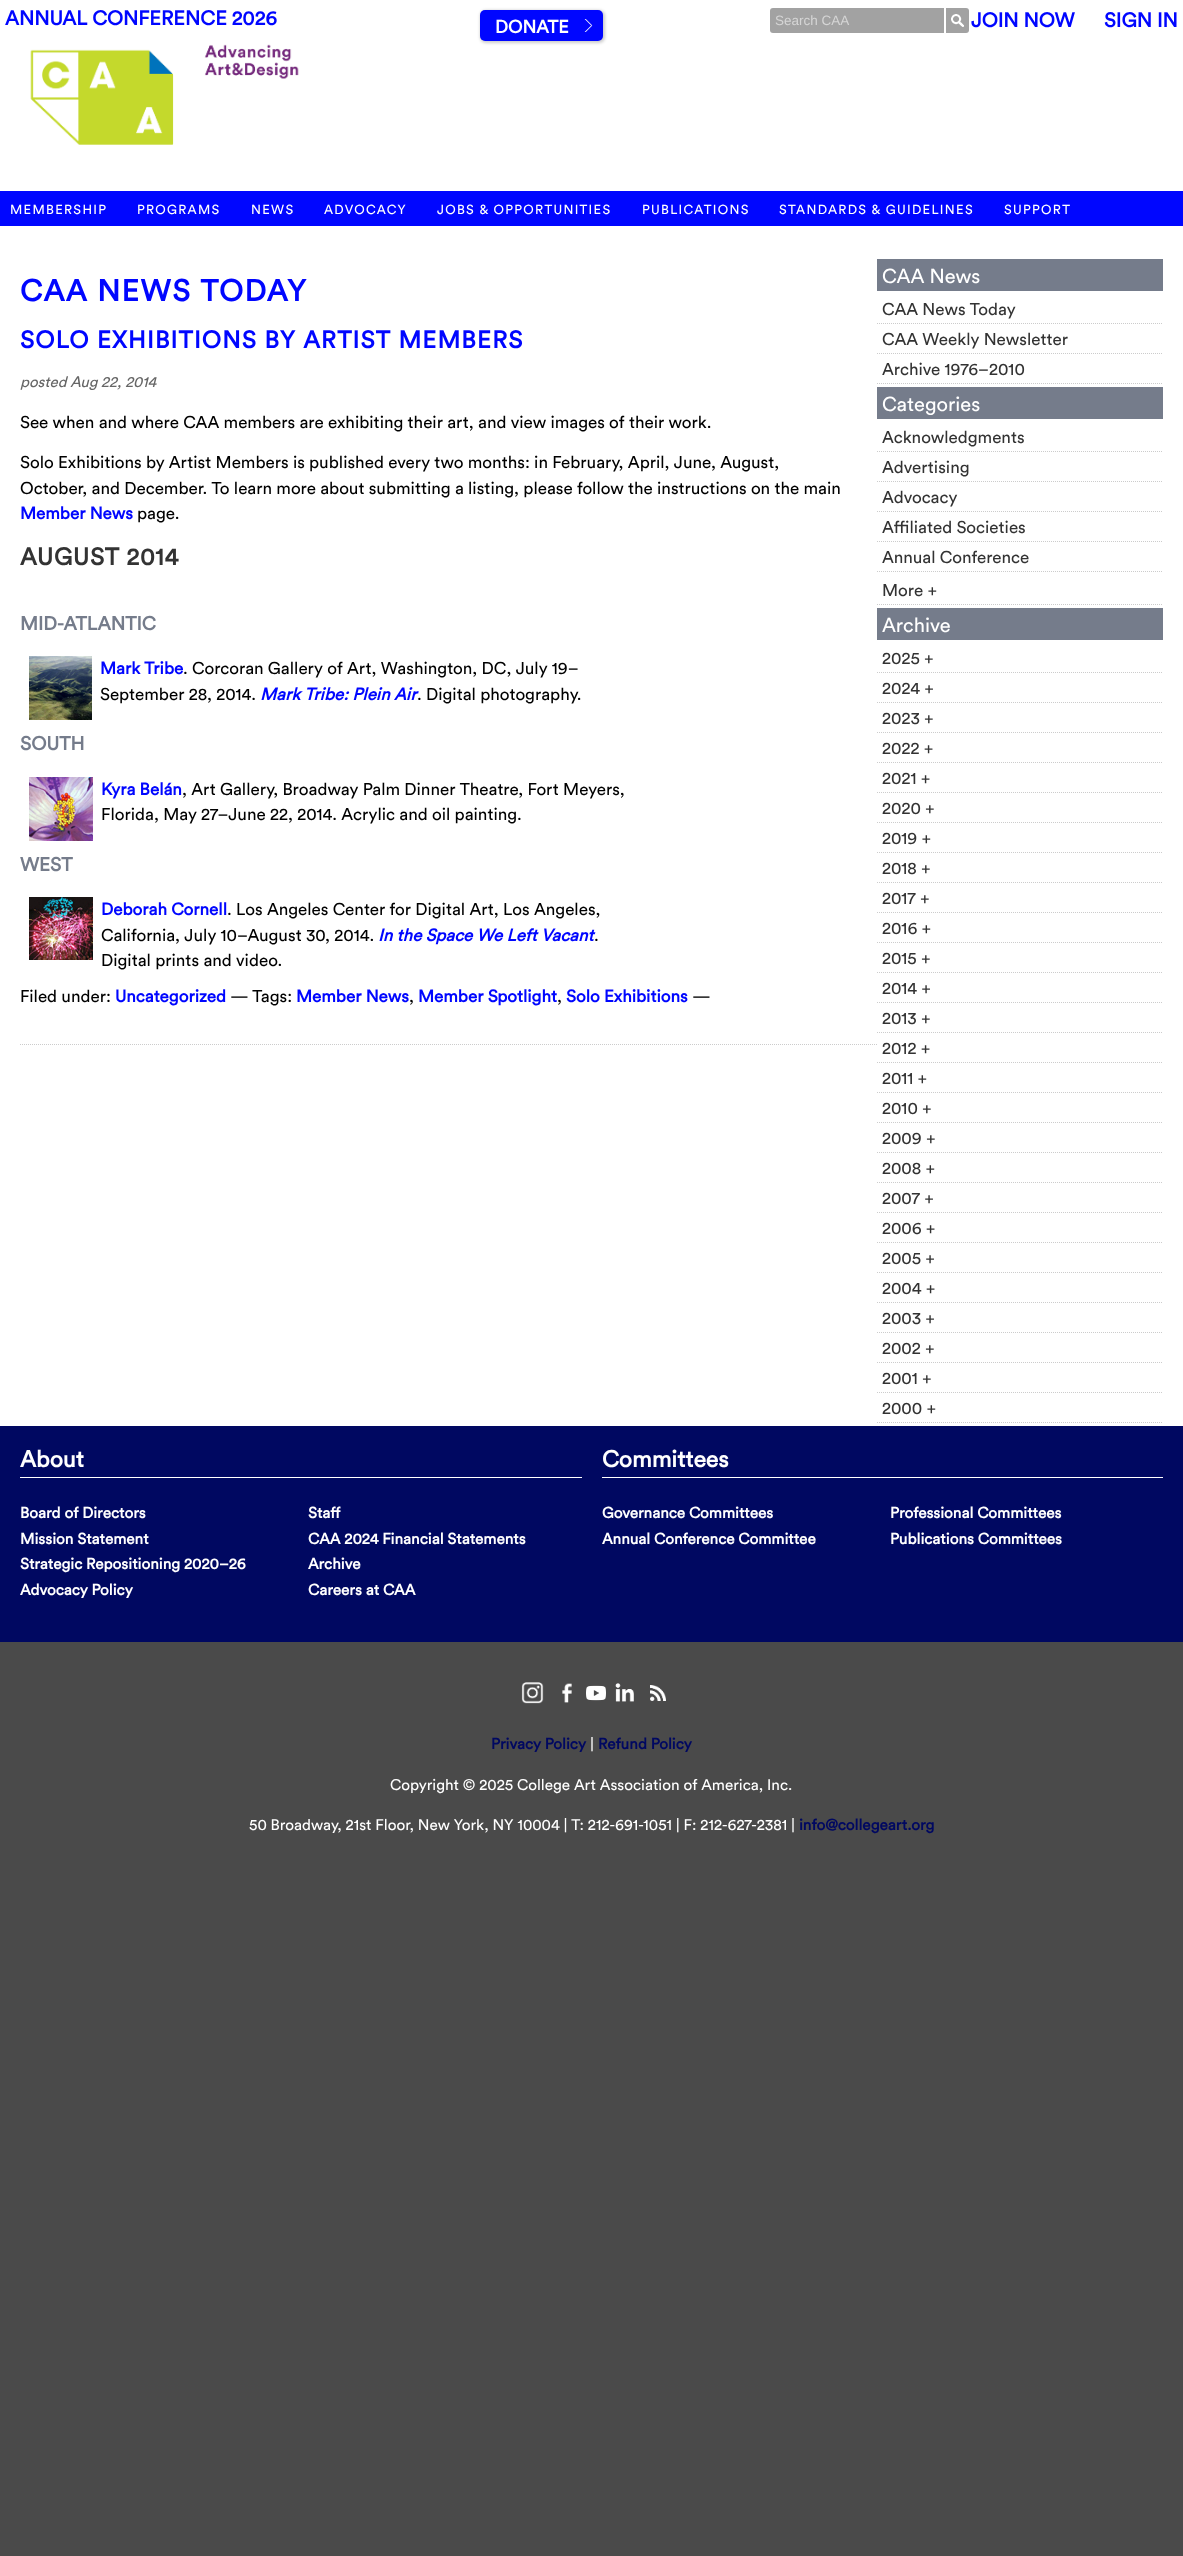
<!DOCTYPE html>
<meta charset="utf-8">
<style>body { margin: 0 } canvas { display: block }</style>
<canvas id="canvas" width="1183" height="2556"></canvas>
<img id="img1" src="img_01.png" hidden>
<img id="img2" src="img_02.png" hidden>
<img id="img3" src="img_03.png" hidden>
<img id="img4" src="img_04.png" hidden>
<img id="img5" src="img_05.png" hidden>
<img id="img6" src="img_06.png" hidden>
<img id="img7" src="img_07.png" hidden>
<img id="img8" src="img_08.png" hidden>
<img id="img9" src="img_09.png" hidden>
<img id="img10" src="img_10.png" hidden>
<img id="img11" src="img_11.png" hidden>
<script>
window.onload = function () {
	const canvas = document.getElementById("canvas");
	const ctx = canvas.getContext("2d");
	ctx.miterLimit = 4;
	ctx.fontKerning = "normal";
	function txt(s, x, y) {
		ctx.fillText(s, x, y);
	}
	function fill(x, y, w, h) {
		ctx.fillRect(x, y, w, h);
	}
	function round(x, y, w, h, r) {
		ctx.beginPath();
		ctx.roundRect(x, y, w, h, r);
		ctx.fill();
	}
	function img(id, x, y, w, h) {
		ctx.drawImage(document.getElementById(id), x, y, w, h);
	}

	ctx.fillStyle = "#4A4A4A";
	fill(0, 0, 1183, 2556);
	ctx.fillStyle = "#FFFFFF";
	fill(0, 0, 1183, 191);
	img("img1", 30, 44, 269, 101);
	ctx.fillStyle = "rgba(0, 0, 0, 0.2)";
	ctx.filter = "blur(1.5px)";
	ctx.beginPath();
	ctx.roundRect(480, 10, 125, 33, 6);
	ctx.fill();
	ctx.filter = "none";
	ctx.fillStyle = "#0006FF";
	round(480, 10, 123, 31, 5);
	img("img2", 584, 19, 9, 13);
	ctx.fillStyle = "#A2A2A2";
	ctx.beginPath();
	ctx.roundRect(770, 8, 174, 25, [3, 0, 0, 3]);
	ctx.fill();
	ctx.beginPath();
	ctx.roundRect(946, 8, 23, 25, [0, 3, 3, 0]);
	ctx.fill();
	img("img3", 951, 14, 13, 13);
	ctx.fillStyle = "#0006FF";
	fill(0, 191, 1183, 35);
	ctx.fillStyle = "#FFFFFF";
	fill(0, 226, 1183, 1200);
	ctx.beginPath();
	ctx.moveTo(20, 1044.5);
	ctx.lineTo(878, 1044.5);
	ctx.strokeStyle = "#CCCCCC";
	ctx.setLineDash([1, 1]);
	ctx.stroke();
	img("img4", 29, 656, 63, 64);
	img("img5", 29, 777, 64, 64);
	img("img6", 29, 897, 64, 63);
	ctx.fillStyle = "#757C8B";
	fill(877, 259, 286, 32);
	ctx.beginPath();
	ctx.moveTo(877, 323.5);
	ctx.lineTo(1163, 323.5);
	ctx.stroke();
	ctx.beginPath();
	ctx.moveTo(877, 353.5);
	ctx.lineTo(1163, 353.5);
	ctx.stroke();
	ctx.beginPath();
	ctx.moveTo(877, 383.5);
	ctx.lineTo(1163, 383.5);
	ctx.stroke();
	fill(877, 387, 286, 32);
	ctx.beginPath();
	ctx.moveTo(877, 451.5);
	ctx.lineTo(1163, 451.5);
	ctx.stroke();
	ctx.beginPath();
	ctx.moveTo(877, 481.5);
	ctx.lineTo(1163, 481.5);
	ctx.stroke();
	ctx.beginPath();
	ctx.moveTo(877, 511.5);
	ctx.lineTo(1163, 511.5);
	ctx.stroke();
	ctx.beginPath();
	ctx.moveTo(877, 541.5);
	ctx.lineTo(1163, 541.5);
	ctx.stroke();
	ctx.beginPath();
	ctx.moveTo(877, 571.5);
	ctx.lineTo(1163, 571.5);
	ctx.stroke();
	ctx.beginPath();
	ctx.moveTo(877, 604.5);
	ctx.lineTo(1163, 604.5);
	ctx.stroke();
	fill(877, 608, 286, 32);
	ctx.beginPath();
	ctx.moveTo(877, 672.5);
	ctx.lineTo(1163, 672.5);
	ctx.stroke();
	ctx.beginPath();
	ctx.moveTo(877, 702.5);
	ctx.lineTo(1163, 702.5);
	ctx.stroke();
	ctx.beginPath();
	ctx.moveTo(877, 732.5);
	ctx.lineTo(1163, 732.5);
	ctx.stroke();
	ctx.beginPath();
	ctx.moveTo(877, 762.5);
	ctx.lineTo(1163, 762.5);
	ctx.stroke();
	ctx.beginPath();
	ctx.moveTo(877, 792.5);
	ctx.lineTo(1163, 792.5);
	ctx.stroke();
	ctx.beginPath();
	ctx.moveTo(877, 822.5);
	ctx.lineTo(1163, 822.5);
	ctx.stroke();
	ctx.beginPath();
	ctx.moveTo(877, 852.5);
	ctx.lineTo(1163, 852.5);
	ctx.stroke();
	ctx.beginPath();
	ctx.moveTo(877, 882.5);
	ctx.lineTo(1163, 882.5);
	ctx.stroke();
	ctx.beginPath();
	ctx.moveTo(877, 912.5);
	ctx.lineTo(1163, 912.5);
	ctx.stroke();
	ctx.beginPath();
	ctx.moveTo(877, 942.5);
	ctx.lineTo(1163, 942.5);
	ctx.stroke();
	ctx.beginPath();
	ctx.moveTo(877, 972.5);
	ctx.lineTo(1163, 972.5);
	ctx.stroke();
	ctx.beginPath();
	ctx.moveTo(877, 1002.5);
	ctx.lineTo(1163, 1002.5);
	ctx.stroke();
	ctx.beginPath();
	ctx.moveTo(877, 1032.5);
	ctx.lineTo(1163, 1032.5);
	ctx.stroke();
	ctx.beginPath();
	ctx.moveTo(877, 1062.5);
	ctx.lineTo(1163, 1062.5);
	ctx.stroke();
	ctx.beginPath();
	ctx.moveTo(877, 1092.5);
	ctx.lineTo(1163, 1092.5);
	ctx.stroke();
	ctx.beginPath();
	ctx.moveTo(877, 1122.5);
	ctx.lineTo(1163, 1122.5);
	ctx.stroke();
	ctx.beginPath();
	ctx.moveTo(877, 1152.5);
	ctx.lineTo(1163, 1152.5);
	ctx.stroke();
	ctx.beginPath();
	ctx.moveTo(877, 1182.5);
	ctx.lineTo(1163, 1182.5);
	ctx.stroke();
	ctx.beginPath();
	ctx.moveTo(877, 1212.5);
	ctx.lineTo(1163, 1212.5);
	ctx.stroke();
	ctx.beginPath();
	ctx.moveTo(877, 1242.5);
	ctx.lineTo(1163, 1242.5);
	ctx.stroke();
	ctx.beginPath();
	ctx.moveTo(877, 1272.5);
	ctx.lineTo(1163, 1272.5);
	ctx.stroke();
	ctx.beginPath();
	ctx.moveTo(877, 1302.5);
	ctx.lineTo(1163, 1302.5);
	ctx.stroke();
	ctx.beginPath();
	ctx.moveTo(877, 1332.5);
	ctx.lineTo(1163, 1332.5);
	ctx.stroke();
	ctx.beginPath();
	ctx.moveTo(877, 1362.5);
	ctx.lineTo(1163, 1362.5);
	ctx.stroke();
	ctx.beginPath();
	ctx.moveTo(877, 1392.5);
	ctx.lineTo(1163, 1392.5);
	ctx.stroke();
	ctx.beginPath();
	ctx.moveTo(877, 1422.5);
	ctx.lineTo(1163, 1422.5);
	ctx.stroke();
	ctx.fillStyle = "#000861";
	fill(0, 1426, 1183, 216);
	ctx.fillStyle = "#FFFFFF";
	fill(20, 1477, 562, 1);
	fill(602, 1477, 561, 1);
	img("img7", 521, 1682, 23, 22);
	img("img8", 562, 1683, 10, 20);
	img("img9", 586, 1685, 20, 16);
	img("img10", 615, 1683, 19, 19);
	img("img11", 650, 1685, 16, 16);
	ctx.font = "bold 20px Circular";
	ctx.fillStyle = "#0006FF";
	txt("ANNUAL CONFERENCE 2026", 5, 25);
	ctx.font = "bold 18px Circular";
	ctx.fillStyle = "#FFFFFF";
	txt("DONATE", 495, 33);
	ctx.font = "13.5px Liberation Sans";
	ctx.fillStyle = "#D5D5D5";
	txt("Search CAA", 775, 25);
	ctx.font = "bold 20px Circular";
	ctx.fillStyle = "#0006FF";
	txt("JOIN NOW", 971, 27);
	txt("SIGN IN", 1104, 27);
	ctx.letterSpacing = "1.3px";
	ctx.font = "13px Circular";
	ctx.fillStyle = "#FFFFFF";
	txt("MEMBERSHIP", 10, 214);
	txt("PROGRAMS", 137, 214);
	txt("NEWS", 251, 214);
	txt("ADVOCACY", 324, 214);
	txt("JOBS & OPPORTUNITIES", 437, 214);
	txt("PUBLICATIONS", 642, 214);
	txt("STANDARDS & GUIDELINES", 779, 214);
	txt("SUPPORT", 1004, 214);
	ctx.letterSpacing = "1.5px";
	ctx.font = "bold 30px Circular";
	ctx.fillStyle = "#0006FF";
	txt("CAA NEWS TODAY", 20, 301);
	ctx.letterSpacing = "1.2px";
	ctx.font = "bold 24px Circular";
	txt("SOLO EXHIBITIONS BY ARTIST MEMBERS", 20, 348);
	ctx.letterSpacing = "0px";
	ctx.font = "italic 15px Circular";
	ctx.fillStyle = "#666666";
	txt("posted Aug 22, 2014", 20, 387);
	ctx.font = "17px Circular";
	ctx.fillStyle = "#000000";
	txt("See when and where CAA members are exhibiting their art, and view images of their work.", 20, 428);
	txt("Solo Exhibitions by Artist Members is published every two months: in February, April, June, August,", 20, 468);
	txt("October, and December. To learn more about submitting a listing, please follow the instructions on the main", 20, 494);
	ctx.font = "bold 17px Circular";
	ctx.fillStyle = "#0006FF";
	txt("Member News", 20, 519);
	ctx.font = "17px Circular";
	ctx.fillStyle = "#000000";
	txt("page.", 137, 519);
	ctx.letterSpacing = "0.75px";
	ctx.font = "bold 24px Circular";
	ctx.fillStyle = "#333333";
	txt("AUGUST 2014", 20, 565);
	ctx.letterSpacing = "0px";
	ctx.font = "bold 19px Circular";
	ctx.fillStyle = "#757C8B";
	txt("MID-ATLANTIC", 20, 630);
	ctx.font = "bold 17px Circular";
	ctx.fillStyle = "#0006FF";
	txt("Mark Tribe", 100, 674);
	ctx.font = "17px Circular";
	ctx.fillStyle = "#000000";
	txt(". Corcoran Gallery of Art, Washington, DC, July 19–", 183, 674);
	txt("September 28, 2014.", 100, 700);
	ctx.font = "italic bold 17px Circular";
	ctx.fillStyle = "#0006FF";
	txt("Mark Tribe: Plein Air", 260, 700);
	ctx.font = "17px Circular";
	ctx.fillStyle = "#000000";
	txt(". Digital photography.", 417, 700);
	ctx.font = "bold 19px Circular";
	ctx.fillStyle = "#757C8B";
	txt("SOUTH", 20, 750);
	ctx.font = "bold 17px Circular";
	ctx.fillStyle = "#0006FF";
	txt("Kyra Belán", 101, 795);
	ctx.font = "17px Circular";
	ctx.fillStyle = "#000000";
	txt(", Art Gallery, Broadway Palm Dinner Theatre, Fort Meyers,", 182, 795);
	txt("Florida, May 27–June 22, 2014. Acrylic and oil painting.", 101, 820);
	ctx.font = "bold 19px Circular";
	ctx.fillStyle = "#757C8B";
	txt("WEST", 20, 871);
	ctx.font = "bold 17px Circular";
	ctx.fillStyle = "#0006FF";
	txt("Deborah Cornell", 101, 915);
	ctx.font = "17px Circular";
	ctx.fillStyle = "#000000";
	txt(". Los Angeles Center for Digital Art, Los Angeles,", 227, 915);
	txt("California, July 10–August 30, 2014.", 101, 941);
	ctx.font = "italic bold 17px Circular";
	ctx.fillStyle = "#0006FF";
	txt("In the Space We Left Vacant", 378, 941);
	ctx.font = "17px Circular";
	ctx.fillStyle = "#000000";
	txt(".", 594, 941);
	txt("Digital prints and video.", 101, 966);
	txt("Filed under:", 20, 1002);
	ctx.font = "bold 17px Circular";
	ctx.fillStyle = "#0006FF";
	txt("Uncategorized", 115, 1002);
	ctx.font = "17px Circular";
	ctx.fillStyle = "#000000";
	txt("— Tags:", 230, 1002);
	ctx.font = "bold 17px Circular";
	ctx.fillStyle = "#0006FF";
	txt("Member News", 296, 1002);
	txt("Member Spotlight", 418, 1002);
	txt("Solo Exhibitions", 566, 1002);
	ctx.font = "17px Circular";
	ctx.fillStyle = "#000000";
	txt("—", 692, 1002);
	txt(",", 409, 1002);
	txt(",", 557, 1002);
	ctx.font = "20px Circular";
	ctx.fillStyle = "#FFFFFF";
	txt("CAA News", 882, 283);
	ctx.font = "17px Circular";
	ctx.fillStyle = "#333333";
	txt("CAA News Today", 882, 315);
	txt("CAA Weekly Newsletter", 882, 345);
	txt("Archive 1976–2010", 882, 375);
	ctx.font = "20px Circular";
	ctx.fillStyle = "#FFFFFF";
	txt("Categories", 882, 411);
	ctx.font = "17px Circular";
	ctx.fillStyle = "#333333";
	txt("Acknowledgments", 882, 443);
	txt("Advertising", 882, 473);
	txt("Advocacy", 882, 503);
	txt("Affiliated Societies", 882, 533);
	txt("Annual Conference", 882, 563);
	txt("More +", 882, 596);
	ctx.font = "20px Circular";
	ctx.fillStyle = "#FFFFFF";
	txt("Archive", 882, 632);
	ctx.font = "17px Circular";
	ctx.fillStyle = "#333333";
	txt("2025 +", 882, 664);
	txt("2024 +", 882, 694);
	txt("2023 +", 882, 724);
	txt("2022 +", 882, 754);
	txt("2021 +", 882, 784);
	txt("2020 +", 882, 814);
	txt("2019 +", 882, 844);
	txt("2018 +", 882, 874);
	txt("2017 +", 882, 904);
	txt("2016 +", 882, 934);
	txt("2015 +", 882, 964);
	txt("2014 +", 882, 994);
	txt("2013 +", 882, 1024);
	txt("2012 +", 882, 1054);
	txt("2011 +", 882, 1084);
	txt("2010 +", 882, 1114);
	txt("2009 +", 882, 1144);
	txt("2008 +", 882, 1174);
	txt("2007 +", 882, 1204);
	txt("2006 +", 882, 1234);
	txt("2005 +", 882, 1264);
	txt("2004 +", 882, 1294);
	txt("2003 +", 882, 1324);
	txt("2002 +", 882, 1354);
	txt("2001 +", 882, 1384);
	txt("2000 +", 882, 1414);
	ctx.font = "bold 23px Circular";
	ctx.fillStyle = "#FFFFFF";
	txt("About", 20, 1467);
	ctx.font = "bold 15.3px Circular";
	txt("Board of Directors", 20, 1518);
	txt("Staff", 308, 1518);
	txt("Mission Statement", 20, 1544);
	txt("CAA 2024 Financial Statements", 308, 1544);
	txt("Strategic Repositioning 2020–26", 20, 1569);
	txt("Archive", 308, 1569);
	txt("Advocacy Policy", 20, 1595);
	txt("Careers at CAA", 308, 1595);
	ctx.font = "bold 23px Circular";
	txt("Committees", 602, 1467);
	ctx.font = "bold 15.3px Circular";
	txt("Governance Committees", 602, 1518);
	txt("Professional Committees", 890, 1518);
	txt("Annual Conference Committee", 602, 1544);
	txt("Publications Committees", 890, 1544);
	ctx.fillStyle = "#000861";
	txt("Privacy Policy", 491, 1749);
	ctx.font = "15.3px Circular";
	ctx.fillStyle = "#FFFFFF";
	txt("|", 590, 1749);
	ctx.font = "bold 15.3px Circular";
	ctx.fillStyle = "#000861";
	txt("Refund Policy", 598, 1749);
	ctx.font = "15.3px Circular";
	ctx.fillStyle = "#FFFFFF";
	txt("Copyright © 2025 College Art Association of America, Inc.", 390, 1790);
	txt("50 Broadway, 21st Floor, New York, NY 10004 | T: 212-691-1051 | F: 212-627-2381 |", 249, 1830);
	ctx.font = "bold 15.3px Circular";
	ctx.fillStyle = "#000861";
	txt("info@collegeart.org", 799, 1830);
};
</script>
